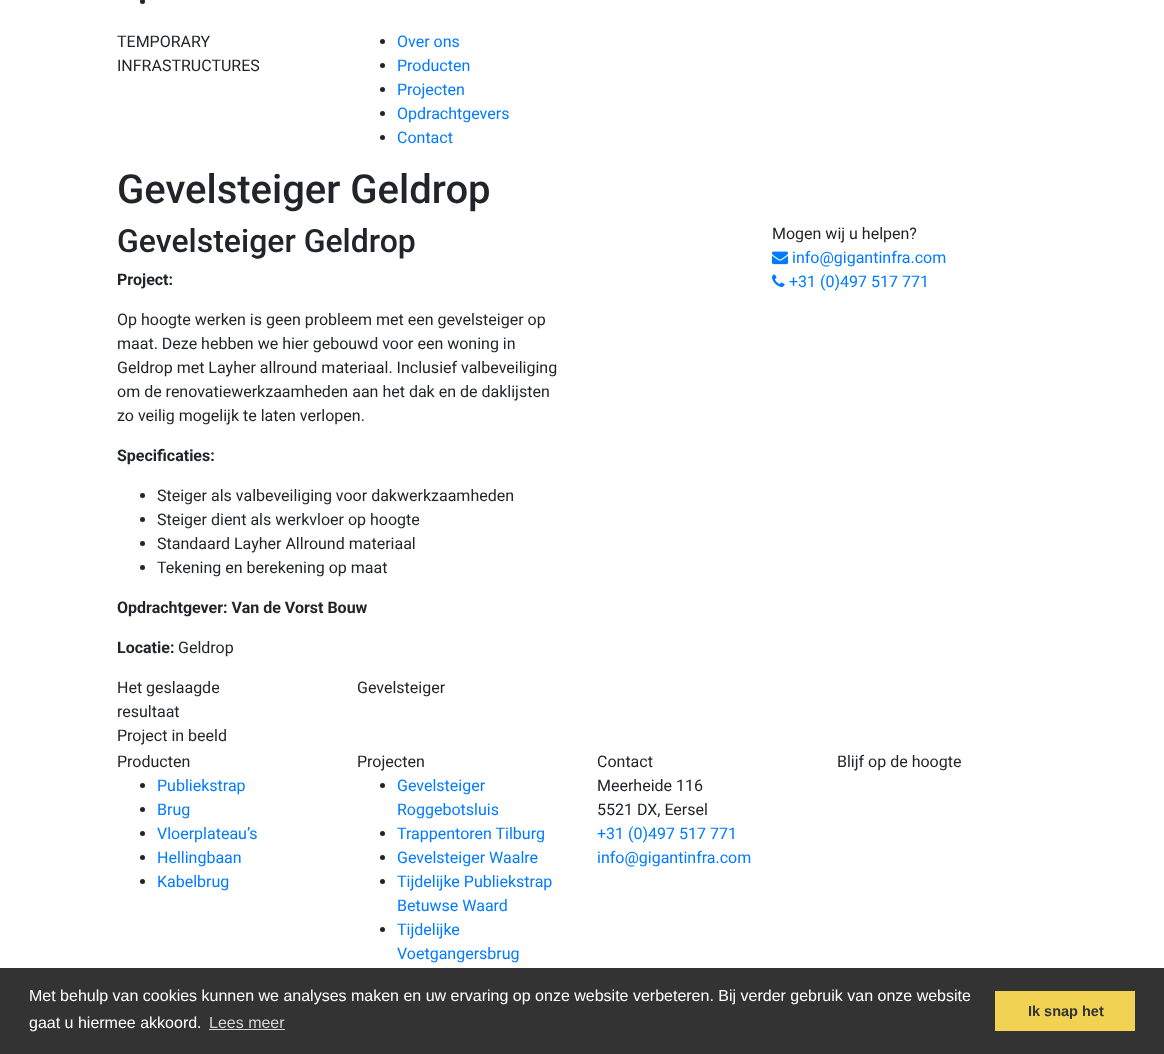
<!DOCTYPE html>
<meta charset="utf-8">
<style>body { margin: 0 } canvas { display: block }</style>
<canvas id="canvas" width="1164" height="1054"></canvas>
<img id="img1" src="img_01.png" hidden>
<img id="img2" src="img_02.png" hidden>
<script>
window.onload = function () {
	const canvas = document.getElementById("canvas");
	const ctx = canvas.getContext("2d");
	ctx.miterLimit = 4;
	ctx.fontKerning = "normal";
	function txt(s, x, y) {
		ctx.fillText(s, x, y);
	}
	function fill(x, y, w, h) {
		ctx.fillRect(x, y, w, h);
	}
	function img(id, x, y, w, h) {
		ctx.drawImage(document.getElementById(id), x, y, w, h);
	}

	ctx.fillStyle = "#FFFFFF";
	fill(0, 0, 1164, 1054);
	ctx.fillStyle = "#212529";
	ctx.beginPath();
	ctx.arc(142.5, 1.5, 2.5, 0, Math.PI * 2);
	ctx.fill();
	ctx.beginPath();
	ctx.arc(382.5, 41.5, 2.5, 0, Math.PI * 2);
	ctx.fill();
	ctx.beginPath();
	ctx.arc(382.5, 65.5, 2.5, 0, Math.PI * 2);
	ctx.fill();
	ctx.beginPath();
	ctx.arc(382.5, 89.5, 2.5, 0, Math.PI * 2);
	ctx.fill();
	ctx.beginPath();
	ctx.arc(382.5, 113.5, 2.5, 0, Math.PI * 2);
	ctx.fill();
	ctx.beginPath();
	ctx.arc(382.5, 137.5, 2.5, 0, Math.PI * 2);
	ctx.fill();
	ctx.beginPath();
	ctx.arc(142.5, 495.5, 2.5, 0, Math.PI * 2);
	ctx.fill();
	ctx.beginPath();
	ctx.arc(142.5, 519.5, 2.5, 0, Math.PI * 2);
	ctx.fill();
	ctx.beginPath();
	ctx.arc(142.5, 543.5, 2.5, 0, Math.PI * 2);
	ctx.fill();
	ctx.beginPath();
	ctx.arc(142.5, 567.5, 2.5, 0, Math.PI * 2);
	ctx.fill();
	img("img1", 772, 251, 16, 14);
	img("img2", 772, 274, 13, 13);
	ctx.beginPath();
	ctx.arc(142.5, 785.5, 2.5, 0, Math.PI * 2);
	ctx.fill();
	ctx.beginPath();
	ctx.arc(142.5, 809.5, 2.5, 0, Math.PI * 2);
	ctx.fill();
	ctx.beginPath();
	ctx.arc(142.5, 833.5, 2.5, 0, Math.PI * 2);
	ctx.fill();
	ctx.beginPath();
	ctx.arc(142.5, 857.5, 2.5, 0, Math.PI * 2);
	ctx.fill();
	ctx.beginPath();
	ctx.arc(142.5, 881.5, 2.5, 0, Math.PI * 2);
	ctx.fill();
	ctx.beginPath();
	ctx.arc(382.5, 785.5, 2.5, 0, Math.PI * 2);
	ctx.fill();
	ctx.beginPath();
	ctx.arc(382.5, 833.5, 2.5, 0, Math.PI * 2);
	ctx.fill();
	ctx.beginPath();
	ctx.arc(382.5, 857.5, 2.5, 0, Math.PI * 2);
	ctx.fill();
	ctx.beginPath();
	ctx.arc(382.5, 881.5, 2.5, 0, Math.PI * 2);
	ctx.fill();
	ctx.beginPath();
	ctx.arc(382.5, 929.5, 2.5, 0, Math.PI * 2);
	ctx.fill();
	ctx.fillStyle = "#333333";
	fill(0, 968, 1164, 86);
	ctx.fillStyle = "#D6D6D6";
	fill(209, 1029, 76, 1);
	ctx.fillStyle = "#F2D253";
	fill(995, 991, 140, 40);
	ctx.font = "16px Roboto";
	ctx.fillStyle = "#212529";
	txt("TEMPORARY", 117, 47);
	txt("INFRASTRUCTURES", 117, 71);
	ctx.fillStyle = "#007BFF";
	txt("Over ons", 397, 47);
	txt("Producten", 397, 71);
	txt("Projecten", 397, 95);
	txt("Opdrachtgevers", 397, 119);
	txt("Contact", 397, 143);
	ctx.font = "500 40px Roboto";
	ctx.fillStyle = "#212529";
	txt("Gevelsteiger Geldrop", 117, 203);
	ctx.font = "500 32px Roboto";
	txt("Gevelsteiger Geldrop", 117, 252);
	ctx.font = "bold 16px Roboto";
	txt("Project:", 117, 285);
	ctx.font = "16px Roboto";
	txt("Op hoogte werken is geen probleem met een gevelsteiger op", 117, 325);
	txt("maat. Deze hebben we hier gebouwd voor een woning in", 117, 349);
	txt("Geldrop met Layher allround materiaal. Inclusief valbeveiliging", 117, 373);
	txt("om de renovatiewerkzaamheden aan het dak en de daklijsten", 117, 397);
	txt("zo veilig mogelijk te laten verlopen.", 117, 421);
	ctx.font = "bold 16px Roboto";
	txt("Specificaties:", 117, 461);
	ctx.font = "16px Roboto";
	txt("Steiger als valbeveiliging voor dakwerkzaamheden", 157, 501);
	txt("Steiger dient als werkvloer op hoogte", 157, 525);
	txt("Standaard Layher Allround materiaal", 157, 549);
	txt("Tekening en berekening op maat", 157, 573);
	ctx.font = "bold 16px Roboto";
	txt("Opdrachtgever: Van de Vorst Bouw", 117, 613);
	txt("Locatie:", 117, 653);
	ctx.font = "16px Roboto";
	txt("Geldrop", 178, 653);
	txt("Mogen wij u helpen?", 772, 239);
	ctx.fillStyle = "#007BFF";
	txt("info@gigantinfra.com", 792, 263);
	txt("+31 (0)497 517 771", 789, 287);
	ctx.fillStyle = "#212529";
	txt("Het geslaagde", 117, 693);
	txt("resultaat", 117, 717);
	txt("Gevelsteiger", 357, 693);
	txt("Project in beeld", 117, 741);
	txt("Producten", 117, 767);
	ctx.fillStyle = "#007BFF";
	txt("Publiekstrap", 157, 791);
	txt("Brug", 157, 815);
	txt("Vloerplateau’s", 157, 839);
	txt("Hellingbaan", 157, 863);
	txt("Kabelbrug", 157, 887);
	ctx.fillStyle = "#212529";
	txt("Projecten", 357, 767);
	ctx.fillStyle = "#007BFF";
	txt("Gevelsteiger", 397, 791);
	txt("Roggebotsluis", 397, 815);
	txt("Trappentoren Tilburg", 397, 839);
	txt("Gevelsteiger Waalre", 397, 863);
	txt("Tijdelijke Publiekstrap", 397, 887);
	txt("Betuwse Waard", 397, 911);
	txt("Tijdelijke", 397, 935);
	txt("Voetgangersbrug", 397, 959);
	ctx.fillStyle = "#212529";
	txt("Contact", 597, 767);
	txt("Meerheide 116", 597, 791);
	txt("5521 DX, Eersel", 597, 815);
	ctx.fillStyle = "#007BFF";
	txt("+31 (0)497 517 771", 597, 839);
	txt("info@gigantinfra.com", 597, 863);
	ctx.fillStyle = "#212529";
	txt("Blijf op de hoogte", 837, 767);
	ctx.font = "16px Liberation Sans";
	ctx.fillStyle = "#FFFFFF";
	txt("Met behulp van cookies kunnen we analyses maken en uw ervaring op onze website verbeteren. Bij verder gebruik van onze website", 29, 1001);
	txt("gaat u hiermee akkoord.", 29, 1028);
	ctx.fillStyle = "#D6D6D6";
	txt("Lees meer", 209, 1028);
	ctx.font = "bold 14.5px Liberation Sans";
	ctx.fillStyle = "#333333";
	txt("Ik snap het", 1028, 1016);
};
</script>
